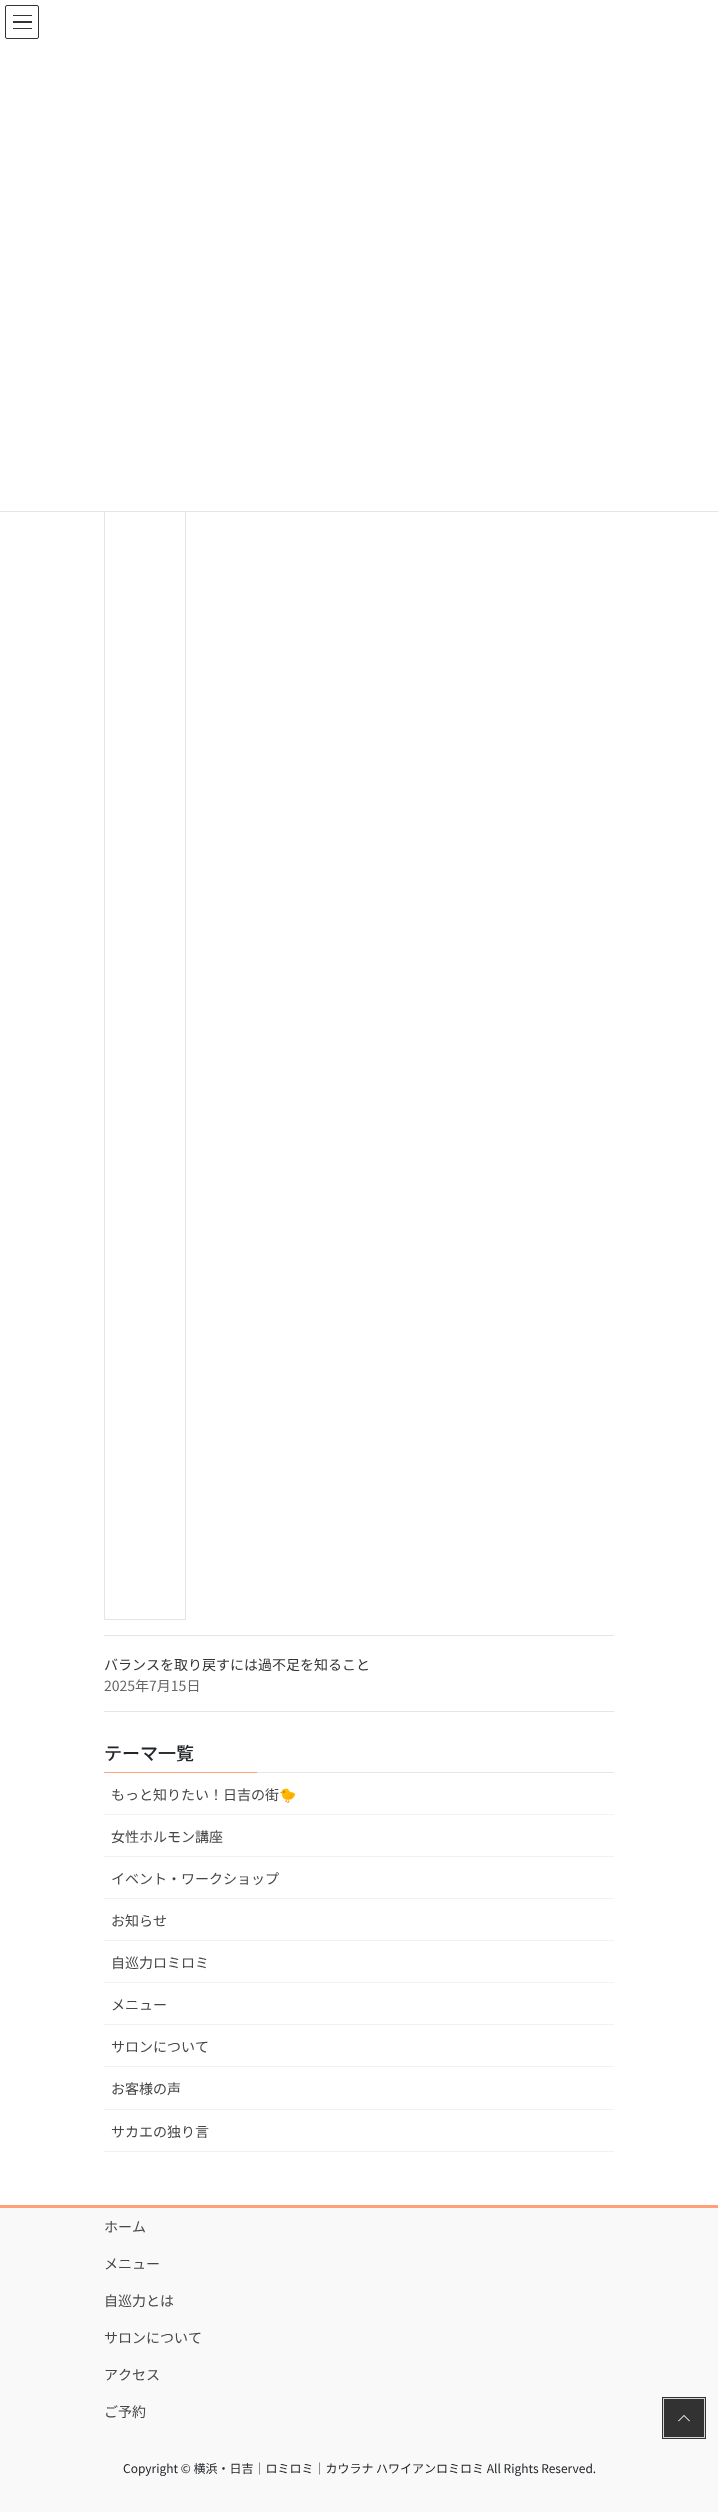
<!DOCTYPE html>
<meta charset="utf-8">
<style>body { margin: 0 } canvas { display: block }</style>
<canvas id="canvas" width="718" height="2512"></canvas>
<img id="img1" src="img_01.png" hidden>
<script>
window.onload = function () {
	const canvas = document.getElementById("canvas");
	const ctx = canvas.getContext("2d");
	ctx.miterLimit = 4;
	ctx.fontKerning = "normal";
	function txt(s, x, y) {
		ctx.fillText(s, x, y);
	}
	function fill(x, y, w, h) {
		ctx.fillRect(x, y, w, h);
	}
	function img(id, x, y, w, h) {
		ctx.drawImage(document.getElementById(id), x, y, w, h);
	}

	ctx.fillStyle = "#FFFFFF";
	fill(0, 0, 718, 2512);
	ctx.fillStyle = "#333333";
	fill(13, 15, 19, 1);
	fill(13, 21, 19, 2);
	fill(13, 28, 19, 1);
	ctx.beginPath();
	ctx.roundRect(5.5, 5.5, 33, 33, 1.5);
	ctx.strokeStyle = "#333333";
	ctx.stroke();
	ctx.strokeStyle = "#E5E5E5";
	ctx.strokeRect(104.5, 118.5, 81, 1501);
	ctx.fillStyle = "#FFFFFF";
	fill(104, 118, 82, 393);
	ctx.fillStyle = "#E5E5E5";
	fill(0, 511, 718, 1);
	fill(104, 1635, 510, 1);
	fill(104, 1711, 510, 1);
	ctx.fillStyle = "#E6E6E6";
	fill(257, 1772, 357, 1);
	ctx.fillStyle = "#FFA07A";
	fill(104, 1772, 153, 1);
	ctx.fillStyle = "#F2F2F2";
	fill(104, 1814, 510, 1);
	fill(104, 1856, 510, 1);
	fill(104, 1898, 510, 1);
	fill(104, 1940, 510, 1);
	fill(104, 1982, 510, 1);
	fill(104, 2024, 510, 1);
	fill(104, 2066, 510, 1);
	fill(104, 2109, 510, 1);
	fill(104, 2151, 510, 1);
	ctx.fillStyle = "#F9F9F9";
	fill(0, 2208, 718, 304);
	ctx.fillStyle = "#FFA07A";
	fill(0, 2205, 718, 3);
	ctx.strokeStyle = "#323232";
	ctx.lineWidth = 2;
	ctx.strokeRect(663, 2398, 42, 40);
	ctx.strokeStyle = "#D6D6D6";
	ctx.lineWidth = 1;
	ctx.strokeRect(663.5, 2398.5, 41, 39);
	ctx.fillStyle = "#323232";
	fill(664, 2399, 40, 38);
	img("img1", 678, 2415, 12, 7);
	ctx.font = "14px Noto Sans JP";
	ctx.fillStyle = "#333333";
	txt("バランスを取り戻すには過不足を知ること", 104, 1670);
	ctx.fillStyle = "#666666";
	txt("2025年7月15日", 104, 1691);
	ctx.font = "500 18px Noto Sans JP";
	ctx.fillStyle = "#212529";
	txt("テーマ一覧", 104, 1760);
	ctx.font = "14px Noto Sans JP";
	ctx.fillStyle = "#464646";
	txt("もっと知りたい！日吉の街", 111, 1800);
	ctx.font = "14px Noto Color Emoji";
	txt("🐤", 279, 1800);
	ctx.font = "14px Noto Sans JP";
	txt("女性ホルモン講座", 111, 1842);
	txt("イベント・ワークショップ", 111, 1884);
	txt("お知らせ", 111, 1926);
	txt("自巡力ロミロミ", 111, 1968);
	txt("メニュー", 111, 2010);
	txt("サロンについて", 111, 2052);
	txt("お客様の声", 111, 2094);
	txt("サカエの独り言", 111, 2137);
	txt("ホーム", 104, 2232);
	txt("メニュー", 104, 2269);
	txt("自巡力とは", 104, 2306);
	txt("サロンについて", 104, 2343);
	txt("アクセス", 104, 2380);
	txt("ご予約", 104, 2417);
	ctx.font = "12px Noto Sans JP";
	ctx.fillStyle = "#212529";
	txt("Copyright © 横浜・日吉｜ロミロミ｜カウラナ ハワイアンロミロミ All Rights Reserved.", 123, 2473);
};
</script>
